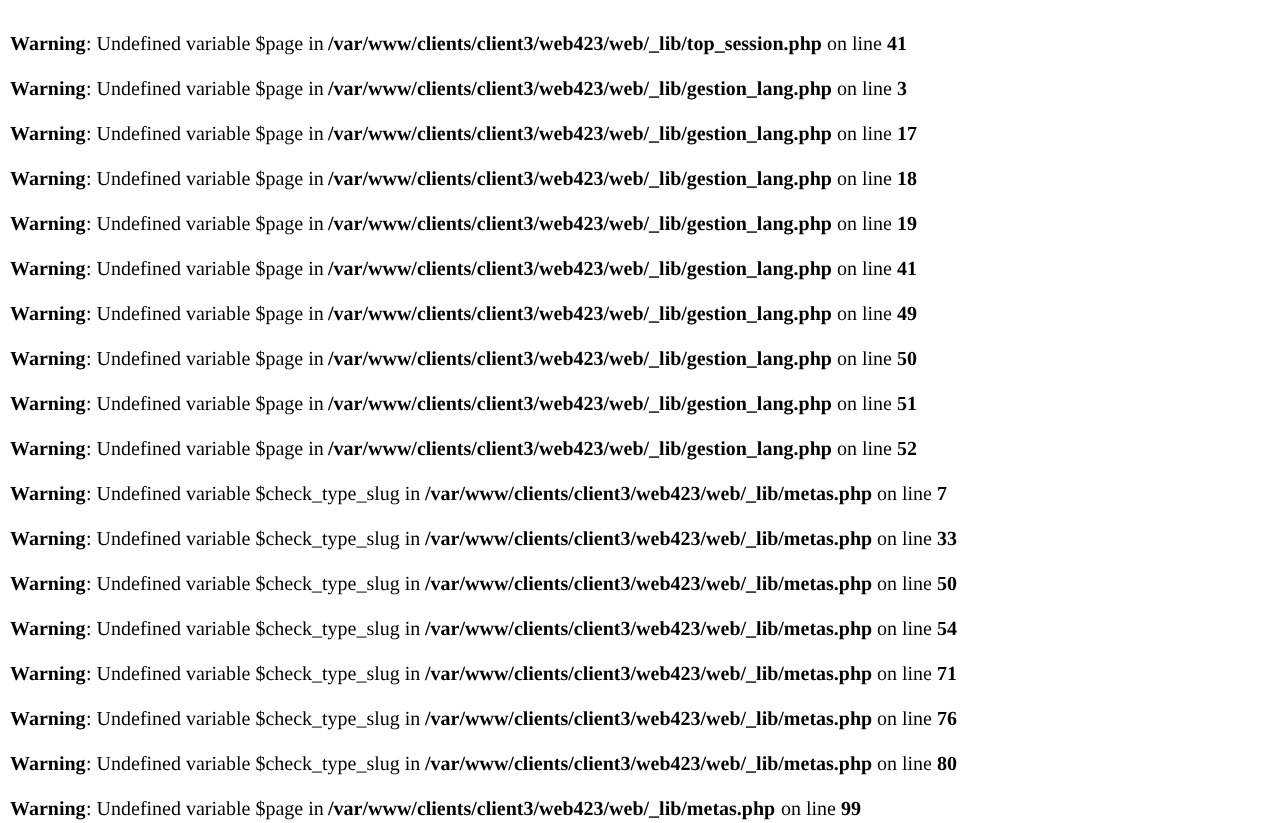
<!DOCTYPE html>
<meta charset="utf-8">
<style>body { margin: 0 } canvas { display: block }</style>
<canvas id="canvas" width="1281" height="823"></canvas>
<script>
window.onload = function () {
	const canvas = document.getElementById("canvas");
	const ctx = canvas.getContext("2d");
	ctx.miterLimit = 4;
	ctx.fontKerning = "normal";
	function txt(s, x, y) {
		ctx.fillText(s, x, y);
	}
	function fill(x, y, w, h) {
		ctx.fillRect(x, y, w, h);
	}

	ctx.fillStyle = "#FFFFFF";
	fill(0, 0, 1281, 823);
	ctx.font = "bold 20px Liberation Serif";
	ctx.fillStyle = "#000000";
	txt("Warning", 10, 50);
	ctx.font = "20px Liberation Serif";
	txt(": Undefined variable $page in", 86, 50);
	ctx.font = "bold 20px Liberation Serif";
	txt("/var/www/clients/client3/web423/web/_lib/top_session.php", 328, 50);
	ctx.font = "20px Liberation Serif";
	txt("on line", 827, 50);
	ctx.font = "bold 20px Liberation Serif";
	txt("41", 887, 50);
	txt("Warning", 10, 95);
	ctx.font = "20px Liberation Serif";
	txt(": Undefined variable $page in", 86, 95);
	ctx.font = "bold 20px Liberation Serif";
	txt("/var/www/clients/client3/web423/web/_lib/gestion_lang.php", 328, 95);
	ctx.font = "20px Liberation Serif";
	txt("on line", 837, 95);
	ctx.font = "bold 20px Liberation Serif";
	txt("3", 897, 95);
	txt("Warning", 10, 140);
	ctx.font = "20px Liberation Serif";
	txt(": Undefined variable $page in", 86, 140);
	ctx.font = "bold 20px Liberation Serif";
	txt("/var/www/clients/client3/web423/web/_lib/gestion_lang.php", 328, 140);
	ctx.font = "20px Liberation Serif";
	txt("on line", 837, 140);
	ctx.font = "bold 20px Liberation Serif";
	txt("17", 897, 140);
	txt("Warning", 10, 185);
	ctx.font = "20px Liberation Serif";
	txt(": Undefined variable $page in", 86, 185);
	ctx.font = "bold 20px Liberation Serif";
	txt("/var/www/clients/client3/web423/web/_lib/gestion_lang.php", 328, 185);
	ctx.font = "20px Liberation Serif";
	txt("on line", 837, 185);
	ctx.font = "bold 20px Liberation Serif";
	txt("18", 897, 185);
	txt("Warning", 10, 230);
	ctx.font = "20px Liberation Serif";
	txt(": Undefined variable $page in", 86, 230);
	ctx.font = "bold 20px Liberation Serif";
	txt("/var/www/clients/client3/web423/web/_lib/gestion_lang.php", 328, 230);
	ctx.font = "20px Liberation Serif";
	txt("on line", 837, 230);
	ctx.font = "bold 20px Liberation Serif";
	txt("19", 897, 230);
	txt("Warning", 10, 275);
	ctx.font = "20px Liberation Serif";
	txt(": Undefined variable $page in", 86, 275);
	ctx.font = "bold 20px Liberation Serif";
	txt("/var/www/clients/client3/web423/web/_lib/gestion_lang.php", 328, 275);
	ctx.font = "20px Liberation Serif";
	txt("on line", 837, 275);
	ctx.font = "bold 20px Liberation Serif";
	txt("41", 897, 275);
	txt("Warning", 10, 320);
	ctx.font = "20px Liberation Serif";
	txt(": Undefined variable $page in", 86, 320);
	ctx.font = "bold 20px Liberation Serif";
	txt("/var/www/clients/client3/web423/web/_lib/gestion_lang.php", 328, 320);
	ctx.font = "20px Liberation Serif";
	txt("on line", 837, 320);
	ctx.font = "bold 20px Liberation Serif";
	txt("49", 897, 320);
	txt("Warning", 10, 365);
	ctx.font = "20px Liberation Serif";
	txt(": Undefined variable $page in", 86, 365);
	ctx.font = "bold 20px Liberation Serif";
	txt("/var/www/clients/client3/web423/web/_lib/gestion_lang.php", 328, 365);
	ctx.font = "20px Liberation Serif";
	txt("on line", 837, 365);
	ctx.font = "bold 20px Liberation Serif";
	txt("50", 897, 365);
	txt("Warning", 10, 410);
	ctx.font = "20px Liberation Serif";
	txt(": Undefined variable $page in", 86, 410);
	ctx.font = "bold 20px Liberation Serif";
	txt("/var/www/clients/client3/web423/web/_lib/gestion_lang.php", 328, 410);
	ctx.font = "20px Liberation Serif";
	txt("on line", 837, 410);
	ctx.font = "bold 20px Liberation Serif";
	txt("51", 897, 410);
	txt("Warning", 10, 455);
	ctx.font = "20px Liberation Serif";
	txt(": Undefined variable $page in", 86, 455);
	ctx.font = "bold 20px Liberation Serif";
	txt("/var/www/clients/client3/web423/web/_lib/gestion_lang.php", 328, 455);
	ctx.font = "20px Liberation Serif";
	txt("on line", 837, 455);
	ctx.font = "bold 20px Liberation Serif";
	txt("52", 897, 455);
	txt("Warning", 10, 500);
	ctx.font = "20px Liberation Serif";
	txt(": Undefined variable $check_type_slug in", 86, 500);
	ctx.font = "bold 20px Liberation Serif";
	txt("/var/www/clients/client3/web423/web/_lib/metas.php", 425, 500);
	ctx.font = "20px Liberation Serif";
	txt("on line", 877, 500);
	ctx.font = "bold 20px Liberation Serif";
	txt("7", 937, 500);
	txt("Warning", 10, 545);
	ctx.font = "20px Liberation Serif";
	txt(": Undefined variable $check_type_slug in", 86, 545);
	ctx.font = "bold 20px Liberation Serif";
	txt("/var/www/clients/client3/web423/web/_lib/metas.php", 425, 545);
	ctx.font = "20px Liberation Serif";
	txt("on line", 877, 545);
	ctx.font = "bold 20px Liberation Serif";
	txt("33", 937, 545);
	txt("Warning", 10, 590);
	ctx.font = "20px Liberation Serif";
	txt(": Undefined variable $check_type_slug in", 86, 590);
	ctx.font = "bold 20px Liberation Serif";
	txt("/var/www/clients/client3/web423/web/_lib/metas.php", 425, 590);
	ctx.font = "20px Liberation Serif";
	txt("on line", 877, 590);
	ctx.font = "bold 20px Liberation Serif";
	txt("50", 937, 590);
	txt("Warning", 10, 635);
	ctx.font = "20px Liberation Serif";
	txt(": Undefined variable $check_type_slug in", 86, 635);
	ctx.font = "bold 20px Liberation Serif";
	txt("/var/www/clients/client3/web423/web/_lib/metas.php", 425, 635);
	ctx.font = "20px Liberation Serif";
	txt("on line", 877, 635);
	ctx.font = "bold 20px Liberation Serif";
	txt("54", 937, 635);
	txt("Warning", 10, 680);
	ctx.font = "20px Liberation Serif";
	txt(": Undefined variable $check_type_slug in", 86, 680);
	ctx.font = "bold 20px Liberation Serif";
	txt("/var/www/clients/client3/web423/web/_lib/metas.php", 425, 680);
	ctx.font = "20px Liberation Serif";
	txt("on line", 877, 680);
	ctx.font = "bold 20px Liberation Serif";
	txt("71", 937, 680);
	txt("Warning", 10, 725);
	ctx.font = "20px Liberation Serif";
	txt(": Undefined variable $check_type_slug in", 86, 725);
	ctx.font = "bold 20px Liberation Serif";
	txt("/var/www/clients/client3/web423/web/_lib/metas.php", 425, 725);
	ctx.font = "20px Liberation Serif";
	txt("on line", 877, 725);
	ctx.font = "bold 20px Liberation Serif";
	txt("76", 937, 725);
	txt("Warning", 10, 770);
	ctx.font = "20px Liberation Serif";
	txt(": Undefined variable $check_type_slug in", 86, 770);
	ctx.font = "bold 20px Liberation Serif";
	txt("/var/www/clients/client3/web423/web/_lib/metas.php", 425, 770);
	ctx.font = "20px Liberation Serif";
	txt("on line", 877, 770);
	ctx.font = "bold 20px Liberation Serif";
	txt("80", 937, 770);
	txt("Warning", 10, 815);
	ctx.font = "20px Liberation Serif";
	txt(": Undefined variable $page in", 86, 815);
	ctx.font = "bold 20px Liberation Serif";
	txt("/var/www/clients/client3/web423/web/_lib/metas.php", 328, 815);
	ctx.font = "20px Liberation Serif";
	txt("on line", 781, 815);
	ctx.font = "bold 20px Liberation Serif";
	txt("99", 841, 815);
};
</script>
